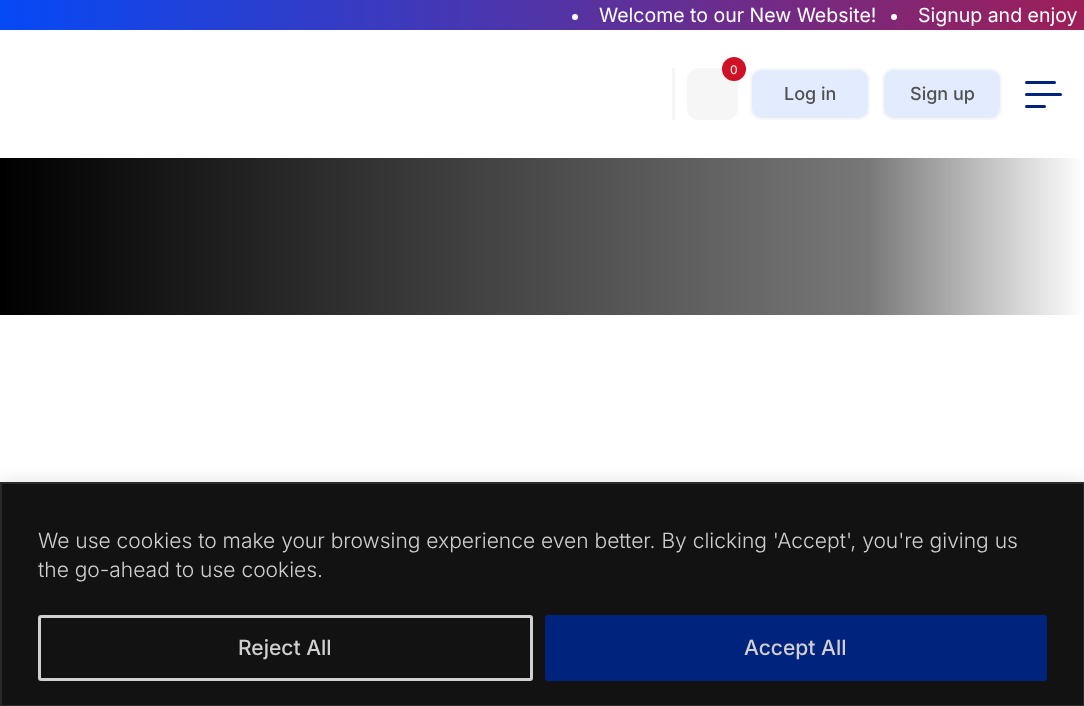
<!DOCTYPE html>
<meta charset="utf-8">
<style>body { margin: 0 } canvas { display: block }</style>
<canvas id="canvas" width="1084" height="706"></canvas>
<script>
window.onload = function () {
	const canvas = document.getElementById("canvas");
	const ctx = canvas.getContext("2d");
	ctx.miterLimit = 4;
	ctx.fontKerning = "normal";
	function txt(s, x, y) {
		ctx.fillText(s, x, y);
	}
	function fill(x, y, w, h) {
		ctx.fillRect(x, y, w, h);
	}
	function round(x, y, w, h, r) {
		ctx.beginPath();
		ctx.roundRect(x, y, w, h, r);
		ctx.fill();
	}
	let gradient;

	ctx.fillStyle = "#FFFFFF";
	fill(0, 0, 1084, 706);
	gradient = ctx.createLinearGradient(0, 60, 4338, 60);
	gradient.addColorStop(0, "#0549F6");
	gradient.addColorStop(0.33, "#CE1125");
	gradient.addColorStop(0.67, "#00237D");
	gradient.addColorStop(1, "#CE1125");
	ctx.fillStyle = gradient;
	fill(0, 0, 1084, 30);
	ctx.fillStyle = "#FFFFFF";
	ctx.beginPath();
	ctx.arc(575, 17, 3, 0, Math.PI * 2);
	ctx.fill();
	ctx.beginPath();
	ctx.arc(894, 17, 3, 0, Math.PI * 2);
	ctx.fill();
	ctx.fillStyle = "#F6F6F6";
	round(672, 68, 3, 52, 1.5);
	round(687, 68, 51, 52, 12);
	ctx.fillStyle = "#CE1125";
	ctx.beginPath();
	ctx.arc(734, 69, 12, 0, Math.PI * 2);
	ctx.fill();
	ctx.fillStyle = "#E3EBFF";
	ctx.beginPath();
	ctx.roundRect(751, 69, 118, 50, 11);
	ctx.fill();
	ctx.strokeStyle = "#F6F6F6";
	ctx.lineWidth = 2;
	ctx.stroke();
	ctx.beginPath();
	ctx.roundRect(883, 69, 118, 50, 11);
	ctx.fill();
	ctx.stroke();
	ctx.fillStyle = "#00237D";
	round(1025, 81, 31, 3, 1.5);
	round(1025, 93, 37, 3, 1.5);
	round(1025, 105, 21, 3, 1.5);
	gradient = ctx.createLinearGradient(0, 236, 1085, 236);
	gradient.addColorStop(0, "#000000");
	gradient.addColorStop(0.8, "#787878");
	gradient.addColorStop(1, "#FFFFFF");
	ctx.fillStyle = gradient;
	fill(0, 158, 1081, 157);
	ctx.fillStyle = "rgba(172, 171, 171, 0.3)";
	ctx.filter = "blur(7.5px)";
	ctx.beginPath();
	ctx.rect(0, 480, 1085, 225);
	ctx.fill();
	ctx.filter = "none";
	ctx.fillStyle = "#121212";
	ctx.beginPath();
	ctx.rect(1, 483, 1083, 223);
	ctx.fill();
	ctx.strokeStyle = "#2A2A2A";
	ctx.stroke();
	ctx.beginPath();
	ctx.roundRect(39.5, 616.5, 492, 63, 1.5);
	ctx.strokeStyle = "#D0D0D0";
	ctx.lineWidth = 3;
	ctx.stroke();
	ctx.fillStyle = "#00237D";
	ctx.beginPath();
	ctx.roundRect(546.5, 616.5, 499, 63, 1.5);
	ctx.fill();
	ctx.strokeStyle = "#00237D";
	ctx.stroke();
	ctx.font = "19.5px Inter";
	ctx.fillStyle = "#FFFFFF";
	txt("Welcome to our New Website!", 599, 22);
	txt("Signup and enjoy", 918, 22);
	ctx.font = "12px Inter";
	txt("0", 730, 74);
	ctx.font = "500 18px Inter";
	ctx.fillStyle = "#515151";
	txt("Log in", 784, 100);
	txt("Sign up", 910, 100);
	ctx.font = "300 21px Inter";
	ctx.fillStyle = "#D0D0D0";
	txt("We use cookies to make your browsing experience even better. By clicking 'Accept', you're giving us", 38, 548);
	txt("the go-ahead to use cookies.", 38, 577);
	ctx.font = "500 21px Inter";
	txt("Reject All", 238, 655);
	txt("Accept All", 744, 655);
};
</script>
